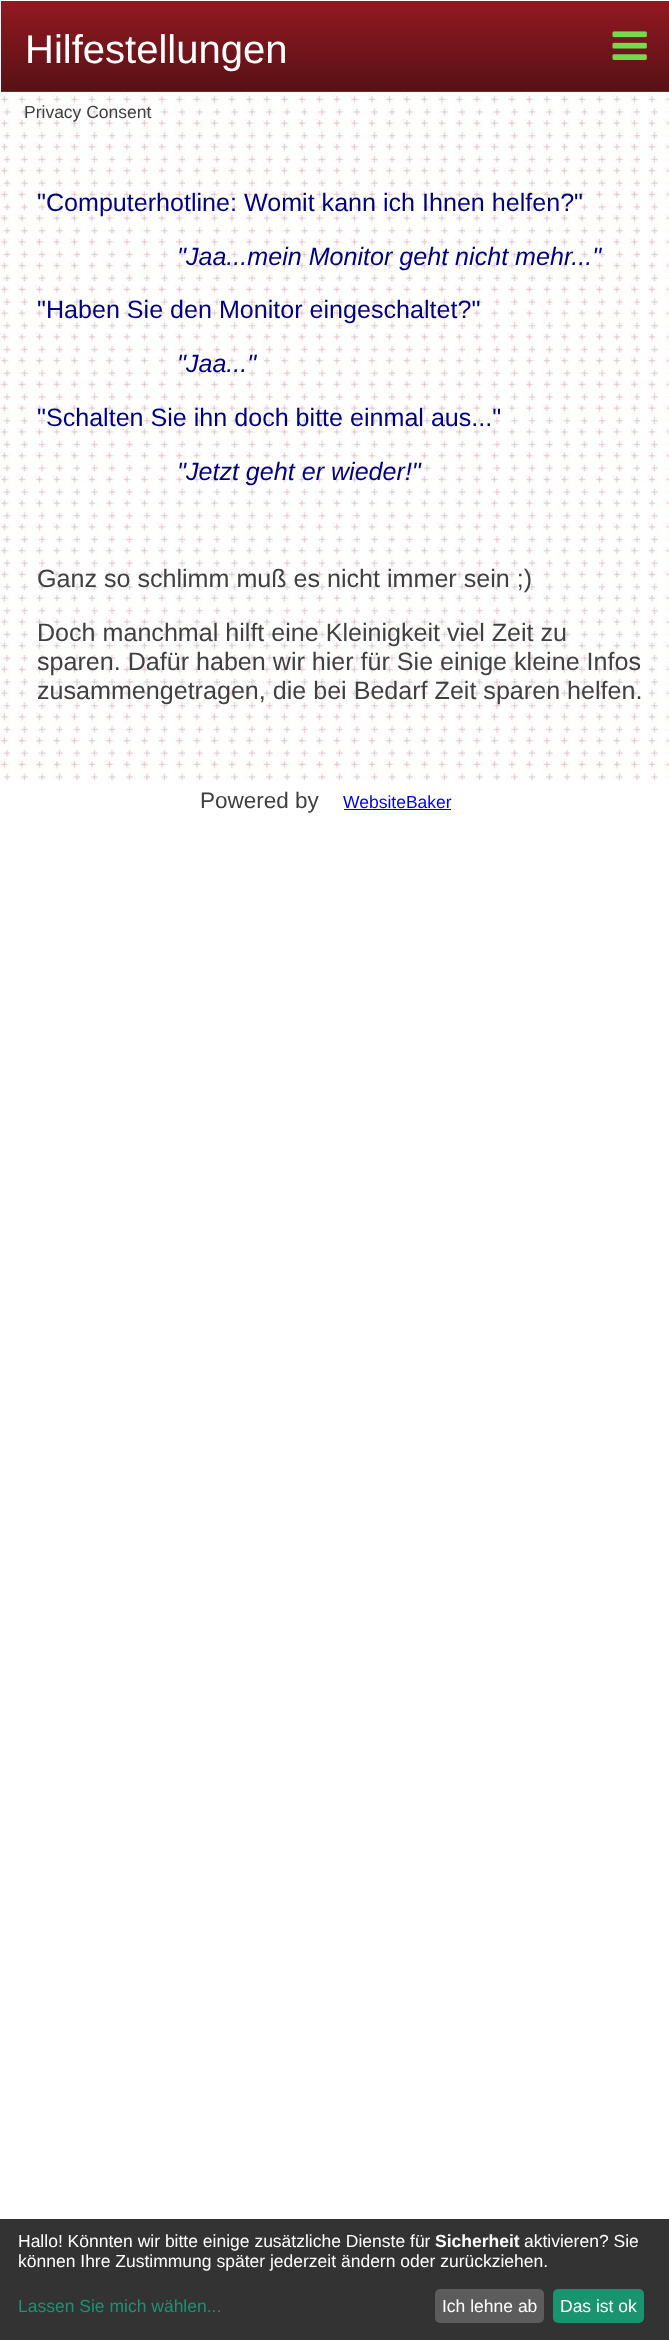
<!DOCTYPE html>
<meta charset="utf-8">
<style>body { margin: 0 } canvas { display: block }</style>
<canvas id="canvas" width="669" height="2340"></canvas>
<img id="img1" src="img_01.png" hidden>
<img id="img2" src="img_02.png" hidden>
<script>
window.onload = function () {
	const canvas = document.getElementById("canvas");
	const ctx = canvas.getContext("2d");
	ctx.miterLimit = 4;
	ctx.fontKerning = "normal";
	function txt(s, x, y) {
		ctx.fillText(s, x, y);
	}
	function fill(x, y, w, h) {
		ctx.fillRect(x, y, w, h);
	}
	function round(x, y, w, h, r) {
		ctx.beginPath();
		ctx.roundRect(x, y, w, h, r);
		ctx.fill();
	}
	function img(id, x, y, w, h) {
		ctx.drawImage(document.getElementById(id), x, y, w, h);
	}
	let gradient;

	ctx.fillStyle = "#FFFFFF";
	fill(0, 0, 669, 2340);
	img("img1", 0, 93, 669, 688);
	gradient = ctx.createLinearGradient(335, 1.2, 335, 91);
	gradient.addColorStop(0, "#931921");
	gradient.addColorStop(1, "#571116");
	ctx.fillStyle = gradient;
	fill(1, 1, 668, 90);
	gradient = ctx.createLinearGradient(335, 91, 335, 181);
	gradient.addColorStop(0, "#931921");
	gradient.addColorStop(1, "#571116");
	ctx.fillStyle = gradient;
	fill(0, 91, 669, 1);
	ctx.strokeStyle = "#FFFFFF";
	ctx.strokeRect(0.5, 0.5, 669, 92);
	img("img2", 612, 31, 35, 29);
	ctx.fillStyle = "#0000EE";
	fill(344, 809, 107, 1);
	ctx.fillStyle = "#333333";
	fill(0, 2219, 669, 121);
	ctx.fillStyle = "#5C5C5C";
	round(435, 2289, 109, 34, 5);
	ctx.fillStyle = "#1A936F";
	round(553, 2289, 91, 34, 5);
	ctx.font = "40px Liberation Sans";
	ctx.fillStyle = "#FFFFFF";
	txt("Hilfestellungen", 25, 63);
	ctx.font = "17.5px Liberation Sans";
	ctx.fillStyle = "#404040";
	txt("Privacy Consent", 24, 118);
	ctx.font = "25.1px Liberation Sans";
	ctx.fillStyle = "#000080";
	txt("\"Computerhotline: Womit kann ich Ihnen helfen?\"", 37, 211);
	ctx.font = "italic 25.1px Liberation Sans";
	txt("\"Jaa...mein Monitor geht nicht mehr...\"", 177, 265);
	ctx.font = "25.1px Liberation Sans";
	txt("\"Haben Sie den Monitor eingeschaltet?\"", 37, 318);
	ctx.font = "italic 25.1px Liberation Sans";
	txt("\"Jaa...\"", 177, 372);
	ctx.font = "25.1px Liberation Sans";
	txt("\"Schalten Sie ihn doch bitte einmal aus...\"", 37, 426);
	ctx.font = "italic 25.1px Liberation Sans";
	txt("\"Jetzt geht er wieder!\"", 177, 480);
	ctx.font = "25.1px Liberation Sans";
	ctx.fillStyle = "#404040";
	txt("Ganz so schlimm muß es nicht immer sein ;)", 37, 587);
	txt("Doch manchmal hilft eine Kleinigkeit viel Zeit zu", 37, 641);
	txt("sparen. Dafür haben wir hier für Sie einige kleine Infos", 37, 670);
	txt("zusammengetragen, die bei Bedarf Zeit sparen helfen.", 37, 699);
	ctx.font = "22.5px Liberation Sans";
	txt("Powered by", 200, 808);
	ctx.font = "17.5px Liberation Sans";
	ctx.fillStyle = "#0000EE";
	txt("WebsiteBaker", 343, 808);
	ctx.fillStyle = "#FFFFFF";
	txt("Hallo! Könnten wir bitte einige zusätzliche Dienste für", 18, 2247);
	ctx.font = "bold 17.5px Liberation Sans";
	txt("Sicherheit", 435, 2247);
	ctx.font = "17.5px Liberation Sans";
	txt("aktivieren? Sie", 524, 2247);
	txt("können Ihre Zustimmung später jederzeit ändern oder zurückziehen.", 18, 2267);
	ctx.fillStyle = "#1A936F";
	txt("Lassen Sie mich wählen...", 18, 2312);
	ctx.fillStyle = "#FFFFFF";
	txt("Ich lehne ab", 442, 2312);
	txt("Das ist ok", 560, 2312);
};
</script>
